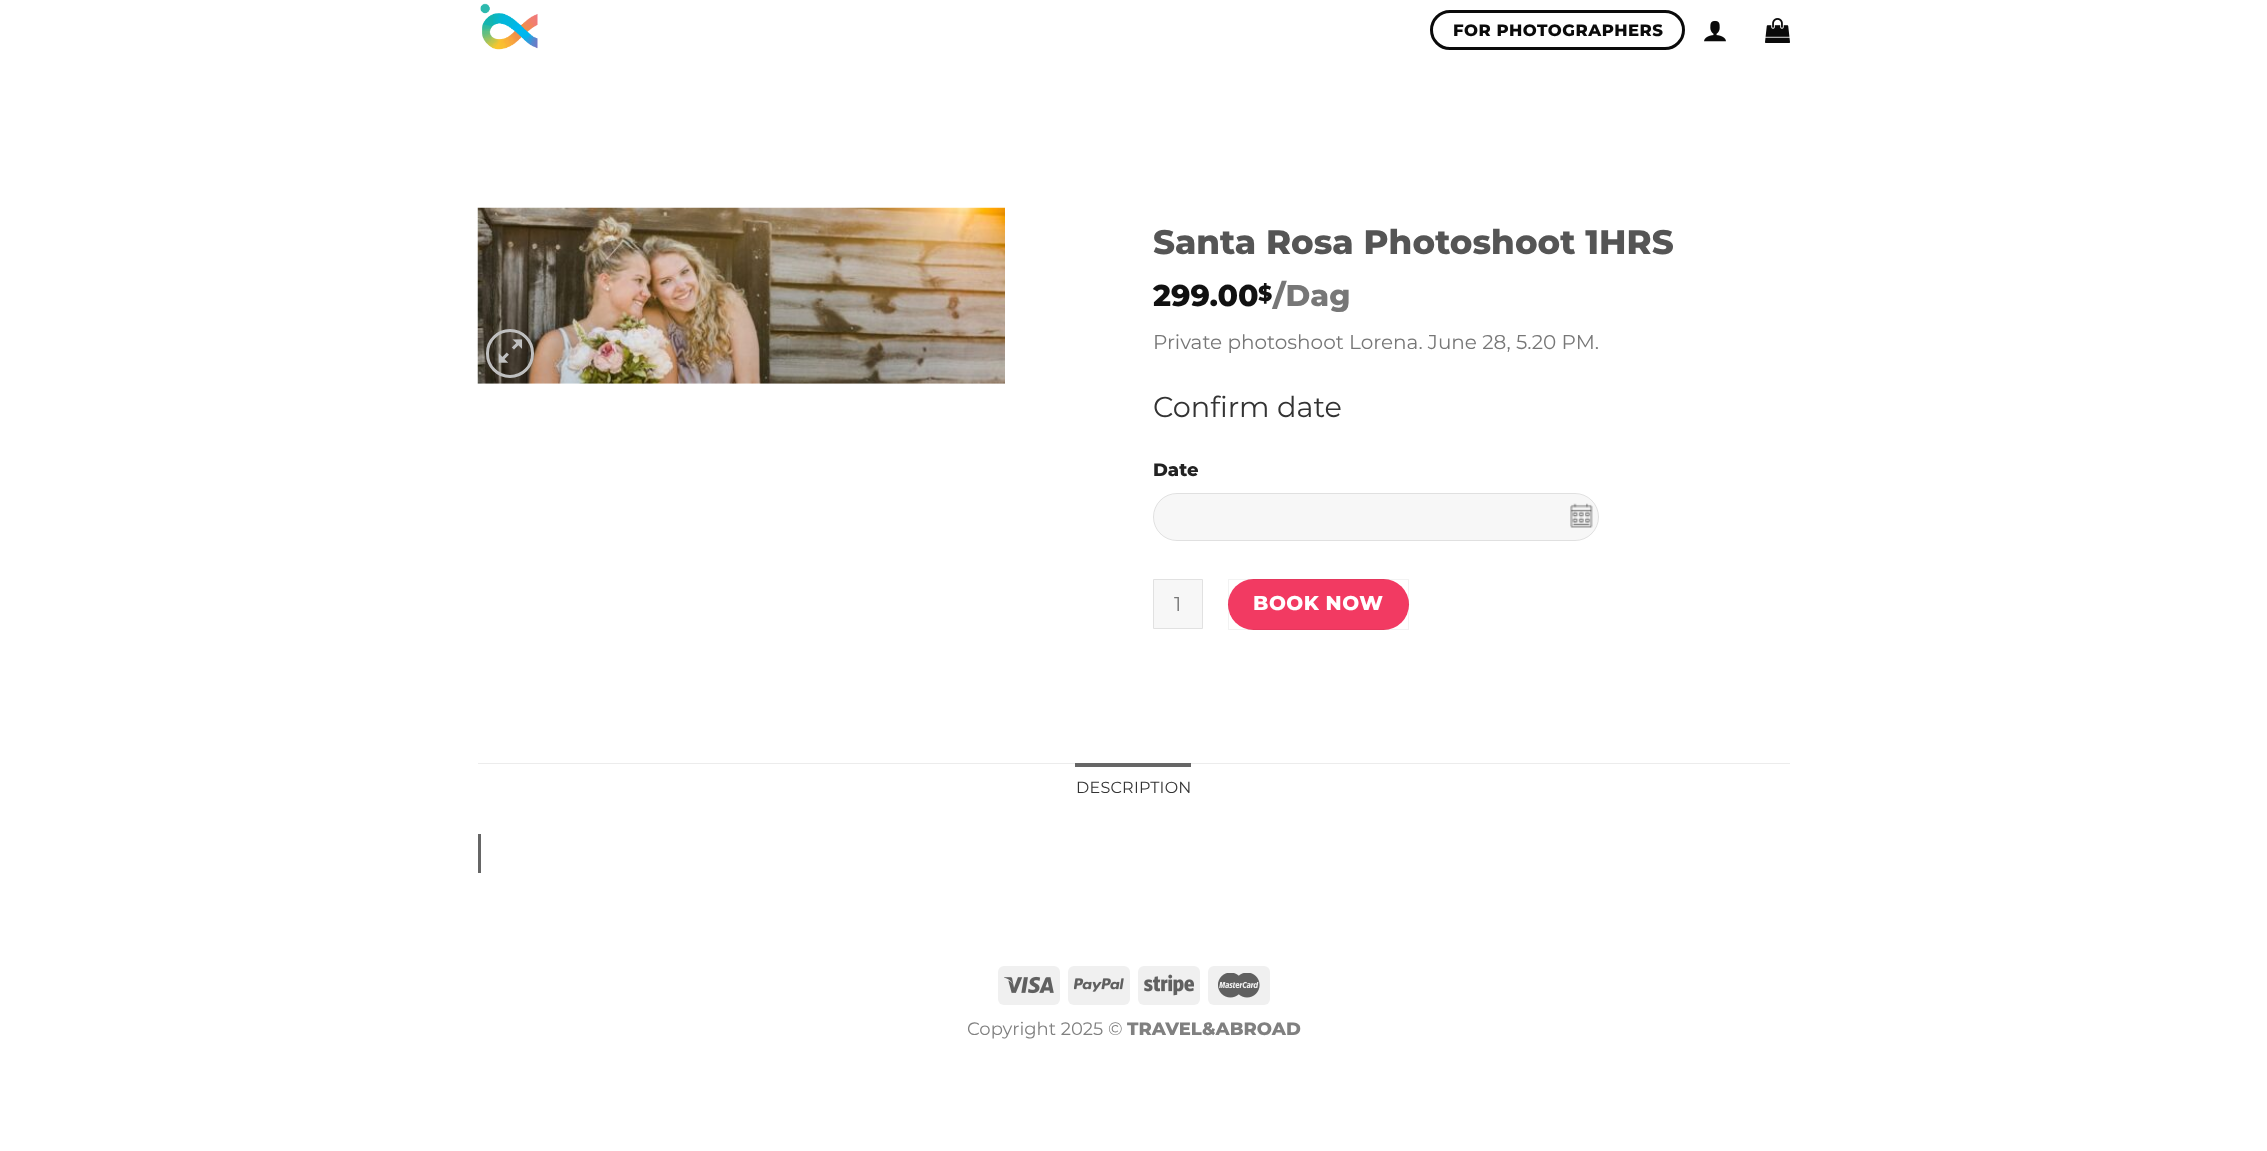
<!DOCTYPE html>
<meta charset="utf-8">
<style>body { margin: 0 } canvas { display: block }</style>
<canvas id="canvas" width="2267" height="1151"></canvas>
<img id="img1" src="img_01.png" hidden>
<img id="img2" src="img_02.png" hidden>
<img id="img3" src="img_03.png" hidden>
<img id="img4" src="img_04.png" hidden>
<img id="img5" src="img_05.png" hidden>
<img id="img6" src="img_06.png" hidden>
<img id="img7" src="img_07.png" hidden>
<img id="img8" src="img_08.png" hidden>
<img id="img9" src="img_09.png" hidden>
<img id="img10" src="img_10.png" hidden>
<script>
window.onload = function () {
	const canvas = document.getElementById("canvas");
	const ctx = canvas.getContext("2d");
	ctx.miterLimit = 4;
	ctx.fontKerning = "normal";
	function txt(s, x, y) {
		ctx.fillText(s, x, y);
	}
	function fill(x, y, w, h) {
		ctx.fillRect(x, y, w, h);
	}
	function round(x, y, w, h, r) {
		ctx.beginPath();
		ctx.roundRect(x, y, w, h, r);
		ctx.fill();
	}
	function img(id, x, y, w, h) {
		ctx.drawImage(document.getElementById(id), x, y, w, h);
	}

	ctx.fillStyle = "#FFFFFF";
	fill(0, 0, 2267, 1151);
	img("img1", 480, 3, 58, 47);
	ctx.beginPath();
	ctx.roundRect(1431.5, 11.5, 252, 37, 18.5);
	ctx.strokeStyle = "#0A0A0A";
	ctx.lineWidth = 3;
	ctx.stroke();
	img("img2", 1704, 20, 22, 22);
	img("img3", 1765, 18, 25, 25);
	img("img4", 477, 207, 528, 177);
	ctx.beginPath();
	ctx.roundRect(487.5, 330.5, 45, 46, 22.5);
	ctx.strokeStyle = "#C0C0C0";
	ctx.stroke();
	img("img5", 498, 339, 25, 24);
	ctx.fillStyle = "#F7F7F7";
	round(1153, 493, 446, 48, 24);
	img("img6", 1570, 503, 23, 25);
	ctx.beginPath();
	ctx.roundRect(1153.5, 493.5, 445, 47, 23.5);
	ctx.strokeStyle = "rgba(0, 0, 0, 0.09)";
	ctx.lineWidth = 1;
	ctx.stroke();
	ctx.beginPath();
	ctx.rect(1153.5, 579.5, 49, 49);
	ctx.fill();
	ctx.strokeStyle = "#E1E1E1";
	ctx.stroke();
	ctx.fillStyle = "#F23A62";
	round(1228, 579, 181, 51, 25.5);
	ctx.strokeStyle = "rgba(0, 0, 0, 0.05)";
	ctx.strokeRect(1228.5, 579.5, 180, 50);
	ctx.fillStyle = "#ECECEC";
	fill(478, 763, 1312, 1);
	ctx.fillStyle = "#666666";
	fill(1075, 763, 116, 4);
	fill(478, 834, 3, 39);
	ctx.fillStyle = "#F0F0F0";
	round(998, 966, 62, 39, 6);
	img("img7", 1004, 976, 50, 18);
	round(1068, 966, 62, 39, 6);
	img("img8", 1074, 978, 50, 14);
	round(1138, 966, 62, 39, 6);
	img("img9", 1144, 974, 50, 22);
	round(1208, 966, 62, 39, 6);
	img("img10", 1218, 973, 42, 25);
	ctx.letterSpacing = "0.5px";
	ctx.font = "800 16.5px Montserrat";
	ctx.fillStyle = "#0A0A0A";
	txt("FOR PHOTOGRAPHERS", 1453, 36);
	ctx.letterSpacing = "0px";
	ctx.font = "800 34px Montserrat";
	ctx.fillStyle = "#555555";
	txt("Santa Rosa Photoshoot 1HRS", 1153, 254);
	ctx.font = "800 30px Montserrat";
	ctx.fillStyle = "#111111";
	txt("299.00", 1153, 306);
	ctx.font = "800 22px Montserrat";
	txt("$", 1258, 301);
	ctx.font = "800 30px Montserrat";
	ctx.fillStyle = "#777777";
	txt("/Dag", 1273, 306);
	ctx.font = "20px Montserrat";
	txt("Private photoshoot Lorena. June 28, 5.20 PM.", 1153, 349);
	ctx.font = "28.75px Montserrat";
	ctx.fillStyle = "#333333";
	txt("Confirm date", 1153, 417);
	ctx.font = "800 18px Montserrat";
	ctx.fillStyle = "#222222";
	txt("Date", 1153, 476);
	ctx.font = "20px Montserrat";
	ctx.fillStyle = "#777777";
	txt("1", 1174, 611);
	ctx.letterSpacing = "0.5px";
	ctx.font = "800 20px Montserrat";
	ctx.fillStyle = "#FFFFFF";
	txt("BOOK NOW", 1253, 610);
	ctx.letterSpacing = "0.25px";
	ctx.font = "16px Montserrat";
	ctx.fillStyle = "#333333";
	txt("DESCRIPTION", 1076, 793);
	ctx.letterSpacing = "0px";
	ctx.font = "18px Montserrat";
	ctx.fillStyle = "#808080";
	txt("Copyright 2025 ©", 967, 1035);
	ctx.font = "800 18px Montserrat";
	txt("TRAVEL&ABROAD", 1127, 1035);
};
</script>
